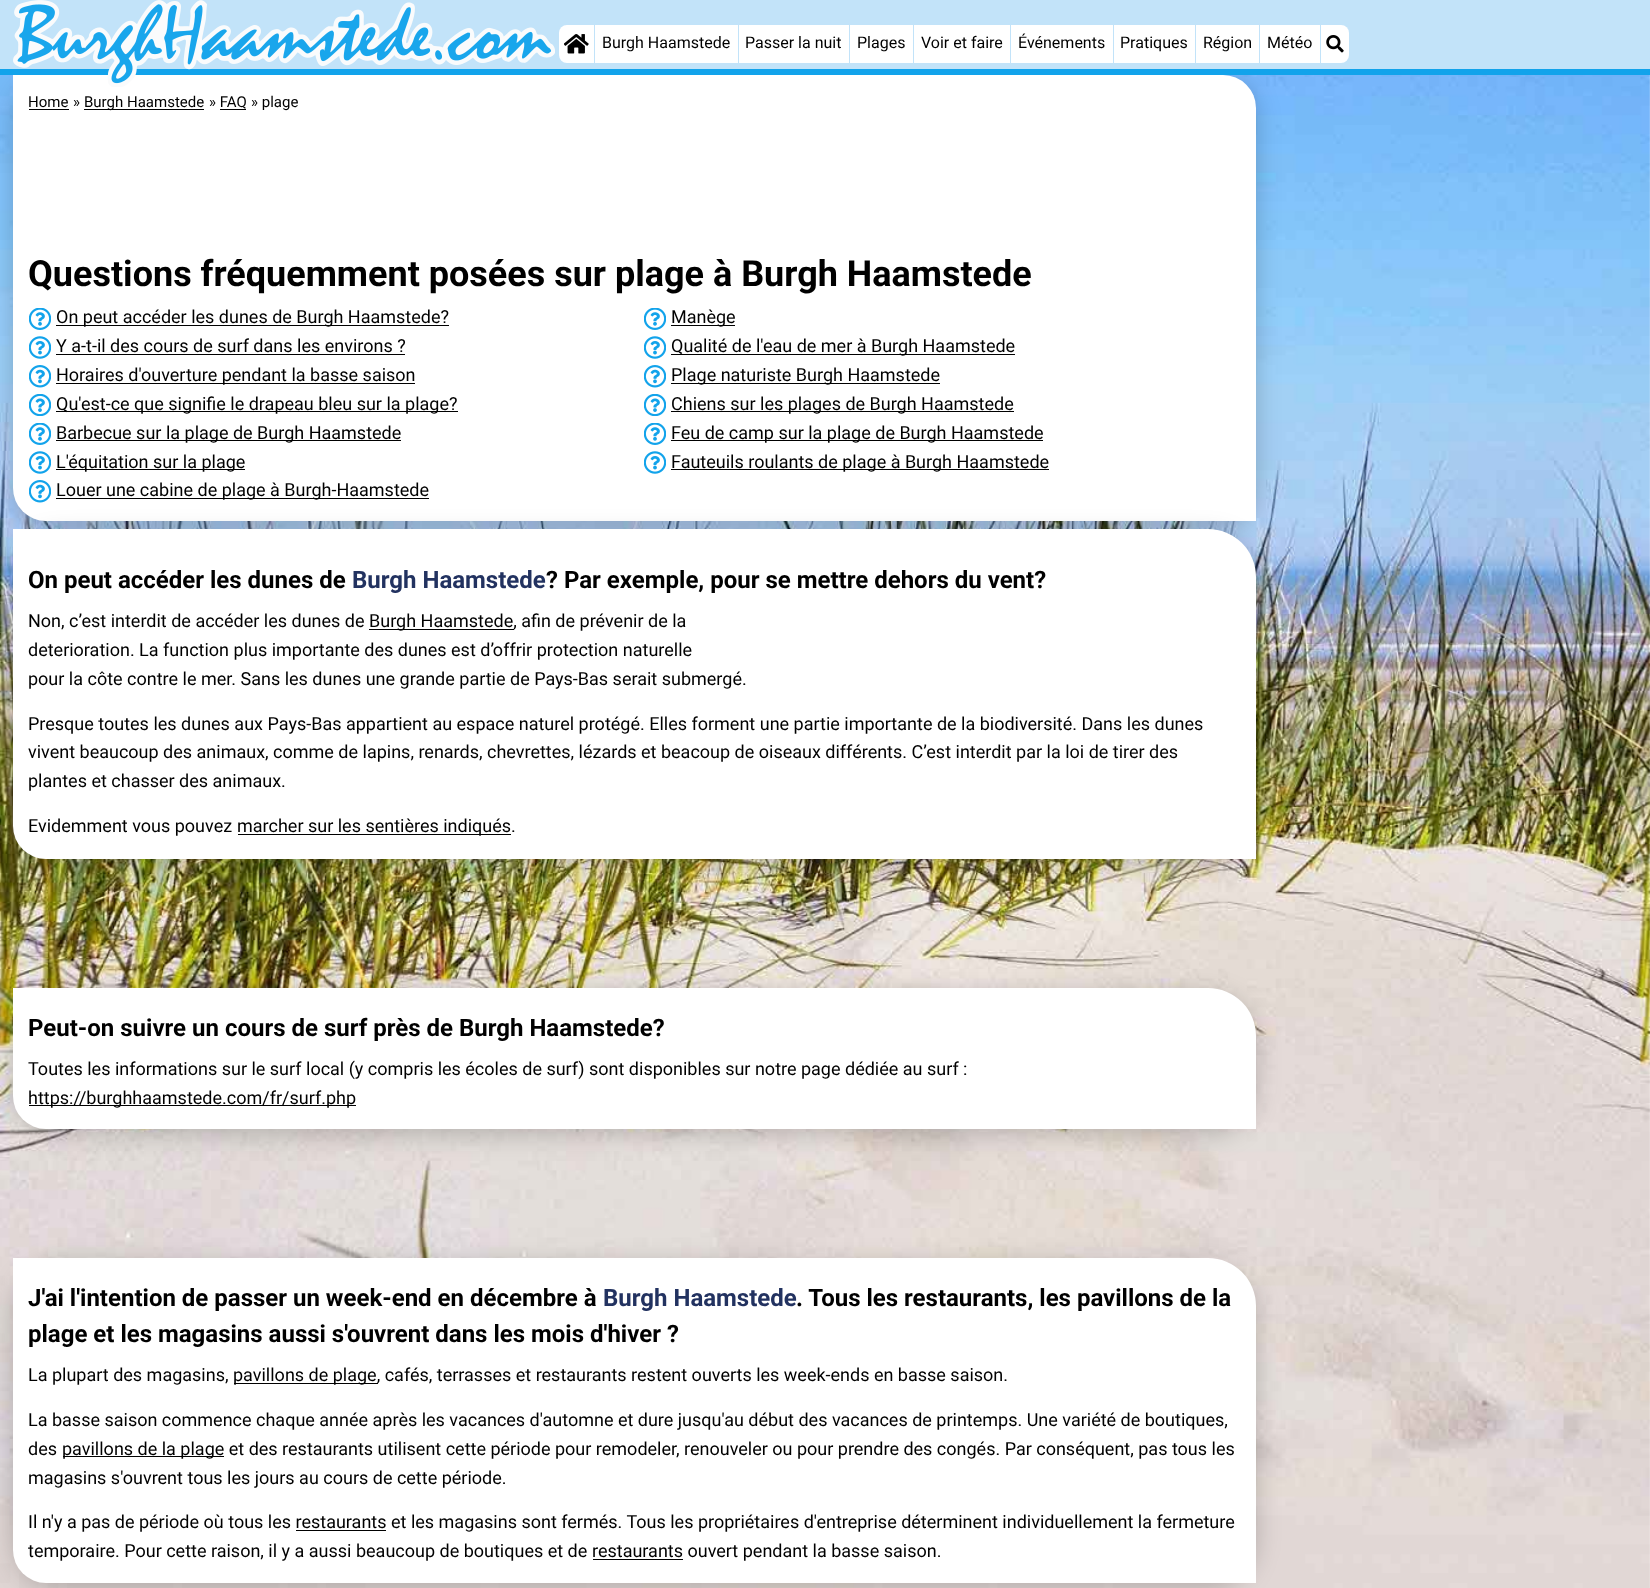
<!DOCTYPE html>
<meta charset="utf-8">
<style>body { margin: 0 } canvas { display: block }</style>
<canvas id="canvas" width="1650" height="1588"></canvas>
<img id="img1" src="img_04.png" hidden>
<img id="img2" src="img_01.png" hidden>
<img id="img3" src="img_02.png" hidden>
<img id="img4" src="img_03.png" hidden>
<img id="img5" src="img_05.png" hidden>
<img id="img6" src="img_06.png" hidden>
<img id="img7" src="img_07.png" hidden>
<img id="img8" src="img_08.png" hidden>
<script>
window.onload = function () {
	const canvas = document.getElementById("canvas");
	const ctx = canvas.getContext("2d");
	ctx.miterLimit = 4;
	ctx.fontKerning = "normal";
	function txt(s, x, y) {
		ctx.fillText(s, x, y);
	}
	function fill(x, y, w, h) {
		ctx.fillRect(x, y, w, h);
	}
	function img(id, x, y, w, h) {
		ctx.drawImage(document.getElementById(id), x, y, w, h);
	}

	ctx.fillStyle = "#FFFFFF";
	fill(0, 0, 1650, 1588);
	img("img1", 0, 75, 1650, 1513);
	ctx.fillStyle = "rgba(0, 0, 0, 0.2)";
	ctx.filter = "blur(12.5px)";
	ctx.beginPath();
	ctx.roundRect(13, 81, 1243, 447, 33);
	ctx.fill();
	ctx.filter = "none";
	ctx.fillStyle = "#C2E3F9";
	fill(0, 0, 1650, 69);
	ctx.fillStyle = "#12A3EB";
	fill(0, 69, 1650, 6);
	ctx.fillStyle = "#FFFFFF";
	ctx.beginPath();
	ctx.roundRect(13, 75, 1243, 446, [0, 33, 0, 33]);
	ctx.fill();
	img("img2", 13, 0, 542, 87);
	ctx.beginPath();
	ctx.roundRect(559, 25, 35, 38, [8, 0, 0, 8]);
	ctx.fill();
	img("img3", 564, 34, 25, 20);
	fill(595, 25, 143, 38);
	fill(739, 25, 110, 38);
	fill(850, 25, 63, 38);
	fill(914, 25, 96, 38);
	fill(1011, 25, 102, 38);
	fill(1114, 25, 81, 38);
	fill(1196, 25, 63, 38);
	fill(1260, 25, 60, 38);
	ctx.beginPath();
	ctx.roundRect(1321, 25, 28, 38, [0, 8, 8, 0]);
	ctx.fill();
	img("img4", 1326, 35, 18, 18);
	ctx.fillStyle = "#000000";
	fill(29, 109, 40, 1);
	fill(84, 109, 120, 1);
	fill(220, 109, 26, 1);
	img("img5", 29, 308, 22, 22);
	fill(56, 325, 393, 1);
	img("img5", 644, 308, 22, 22);
	fill(671, 325, 64, 1);
	img("img6", 29, 336, 22, 23);
	fill(56, 354, 349, 1);
	img("img6", 644, 336, 22, 23);
	fill(671, 354, 344, 1);
	img("img7", 29, 365, 22, 23);
	fill(56, 383, 359, 1);
	img("img7", 644, 365, 22, 23);
	fill(671, 383, 269, 1);
	img("img8", 29, 394, 22, 22);
	fill(56, 411, 402, 1);
	img("img8", 644, 394, 22, 22);
	fill(671, 411, 343, 1);
	img("img5", 29, 423, 22, 22);
	fill(56, 440, 345, 1);
	img("img5", 644, 423, 22, 22);
	fill(671, 440, 372, 1);
	img("img6", 29, 451, 22, 23);
	fill(56, 469, 189, 1);
	img("img6", 644, 451, 22, 23);
	fill(671, 469, 378, 1);
	img("img7", 29, 480, 22, 23);
	fill(56, 498, 373, 1);
	ctx.fillStyle = "rgba(0, 0, 0, 0.2)";
	ctx.filter = "blur(12.5px)";
	ctx.beginPath();
	ctx.roundRect(13, 535, 1243, 330, 48);
	ctx.fill();
	ctx.filter = "none";
	ctx.fillStyle = "#FFFFFF";
	ctx.beginPath();
	ctx.roundRect(13, 529, 1243, 330, [0, 48, 0, 33]);
	ctx.fill();
	ctx.fillStyle = "#000000";
	fill(369, 629, 145, 1);
	fill(238, 834, 273, 1);
	ctx.fillStyle = "rgba(0, 0, 0, 0.2)";
	ctx.filter = "blur(12.5px)";
	ctx.beginPath();
	ctx.roundRect(13, 994, 1243, 141, 48);
	ctx.fill();
	ctx.filter = "none";
	ctx.fillStyle = "#FFFFFF";
	ctx.beginPath();
	ctx.roundRect(13, 988, 1243, 141, [0, 48, 0, 33]);
	ctx.fill();
	ctx.fillStyle = "#000000";
	fill(29, 1105, 327, 1);
	ctx.fillStyle = "rgba(0, 0, 0, 0.2)";
	ctx.filter = "blur(12.5px)";
	ctx.beginPath();
	ctx.roundRect(13, 1264, 1243, 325, 48);
	ctx.fill();
	ctx.filter = "none";
	ctx.fillStyle = "#FFFFFF";
	ctx.beginPath();
	ctx.roundRect(13, 1258, 1243, 325, [0, 48, 0, 33]);
	ctx.fill();
	ctx.fillStyle = "#000000";
	fill(234, 1383, 144, 1);
	fill(63, 1456, 161, 1);
	fill(296, 1530, 90, 1);
	fill(593, 1559, 90, 1);
	ctx.font = "16px Roboto";
	txt("Burgh Haamstede", 602, 48);
	txt("Passer la nuit", 745, 48);
	txt("Plages", 857, 48);
	txt("Voir et faire", 921, 48);
	txt("Événements", 1018, 48);
	txt("Pratiques", 1120, 48);
	txt("Région", 1203, 48);
	txt("Météo", 1267, 48);
	ctx.font = "15px Roboto";
	txt("Home", 28, 107);
	txt("»", 73, 107);
	txt("Burgh Haamstede", 84, 107);
	txt("» FAQ", 209, 107);
	txt("» plage", 251, 107);
	ctx.font = "bold 36px Roboto";
	txt("Questions fréquemment posées sur plage à Burgh Haamstede", 28, 286);
	ctx.font = "18px Roboto";
	txt("On peut accéder les dunes de Burgh Haamstede?", 56, 323);
	txt("Manège", 671, 323);
	txt("Y a-t-il des cours de surf dans les environs ?", 56, 352);
	txt("Qualité de l'eau de mer à Burgh Haamstede", 671, 352);
	txt("Horaires d'ouverture pendant la basse saison", 56, 381);
	txt("Plage naturiste Burgh Haamstede", 671, 381);
	txt("Qu'est-ce que signifie le drapeau bleu sur la plage?", 56, 410);
	txt("Chiens sur les plages de Burgh Haamstede", 671, 410);
	txt("Barbecue sur la plage de Burgh Haamstede", 56, 439);
	txt("Feu de camp sur la plage de Burgh Haamstede", 671, 439);
	txt("L'équitation sur la plage", 56, 468);
	txt("Fauteuils roulants de plage à Burgh Haamstede", 671, 468);
	txt("Louer une cabine de plage à Burgh-Haamstede", 56, 496);
	ctx.font = "bold 24px Roboto";
	txt("On peut accéder les dunes de", 28, 588);
	ctx.fillStyle = "#223260";
	txt("Burgh Haamstede", 352, 588);
	ctx.fillStyle = "#000000";
	txt("? Par exemple, pour se mettre dehors du vent?", 546, 588);
	ctx.font = "18px Roboto";
	txt("Non, c’est interdit de accéder les dunes de", 28, 627);
	txt("Burgh Haamstede, afin de prévenir de la", 369, 627);
	txt("deterioration. La function plus importante des dunes est d’offrir protection naturelle", 28, 656);
	txt("pour la côte contre le mer. Sans les dunes une grande partie de Pays-Bas serait submergé.", 28, 685);
	txt("Presque toutes les dunes aux Pays-Bas appartient au espace naturel protégé. Elles forment une partie importante de la biodiversité. Dans les dunes", 28, 730);
	txt("vivent beaucoup des animaux, comme de lapins, renards, chevrettes, lézards et beacoup de oiseaux différents. C’est interdit par la loi de tirer des", 28, 758);
	txt("plantes et chasser des animaux.", 28, 787);
	txt("Evidemment vous pouvez", 28, 832);
	txt("marcher sur les sentières indiqués.", 237, 832);
	ctx.font = "bold 24px Roboto";
	txt("Peut-on suivre un cours de surf près de Burgh Haamstede?", 28, 1036);
	ctx.font = "18px Roboto";
	txt("Toutes les informations sur le surf local (y compris les écoles de surf) sont disponibles sur notre page dédiée au surf :", 28, 1075);
	txt("https://burghhaamstede.com/fr/surf.php", 28, 1104);
	ctx.font = "bold 24px Roboto";
	txt("J'ai l'intention de passer un week-end en décembre à", 28, 1306);
	ctx.fillStyle = "#223260";
	txt("Burgh Haamstede", 603, 1306);
	ctx.fillStyle = "#000000";
	txt(". Tous les restaurants, les pavillons de la", 796, 1306);
	txt("plage et les magasins aussi s'ouvrent dans les mois d'hiver ?", 28, 1342);
	ctx.font = "18px Roboto";
	txt("La plupart des magasins,", 28, 1381);
	txt("pavillons de plage, cafés, terrasses et restaurants restent ouverts les week-ends en basse saison.", 233, 1381);
	txt("La basse saison commence chaque année après les vacances d'automne et dure jusqu'au début des vacances de printemps. Une variété de boutiques,", 28, 1426);
	txt("des", 28, 1455);
	txt("pavillons de la plage et des restaurants utilisent cette période pour remodeler, renouveler ou pour prendre des congés. Par conséquent, pas tous les", 62, 1455);
	txt("magasins s'ouvrent tous les jours au cours de cette période.", 28, 1484);
	txt("Il n'y a pas de période où tous les restaurants et les magasins sont fermés. Tous les propriétaires d'entreprise déterminent individuellement la fermeture", 28, 1528);
	txt("temporaire. Pour cette raison, il y a aussi beaucoup de boutiques et de", 28, 1557);
	txt("restaurants ouvert pendant la basse saison.", 592, 1557);
};
</script>
